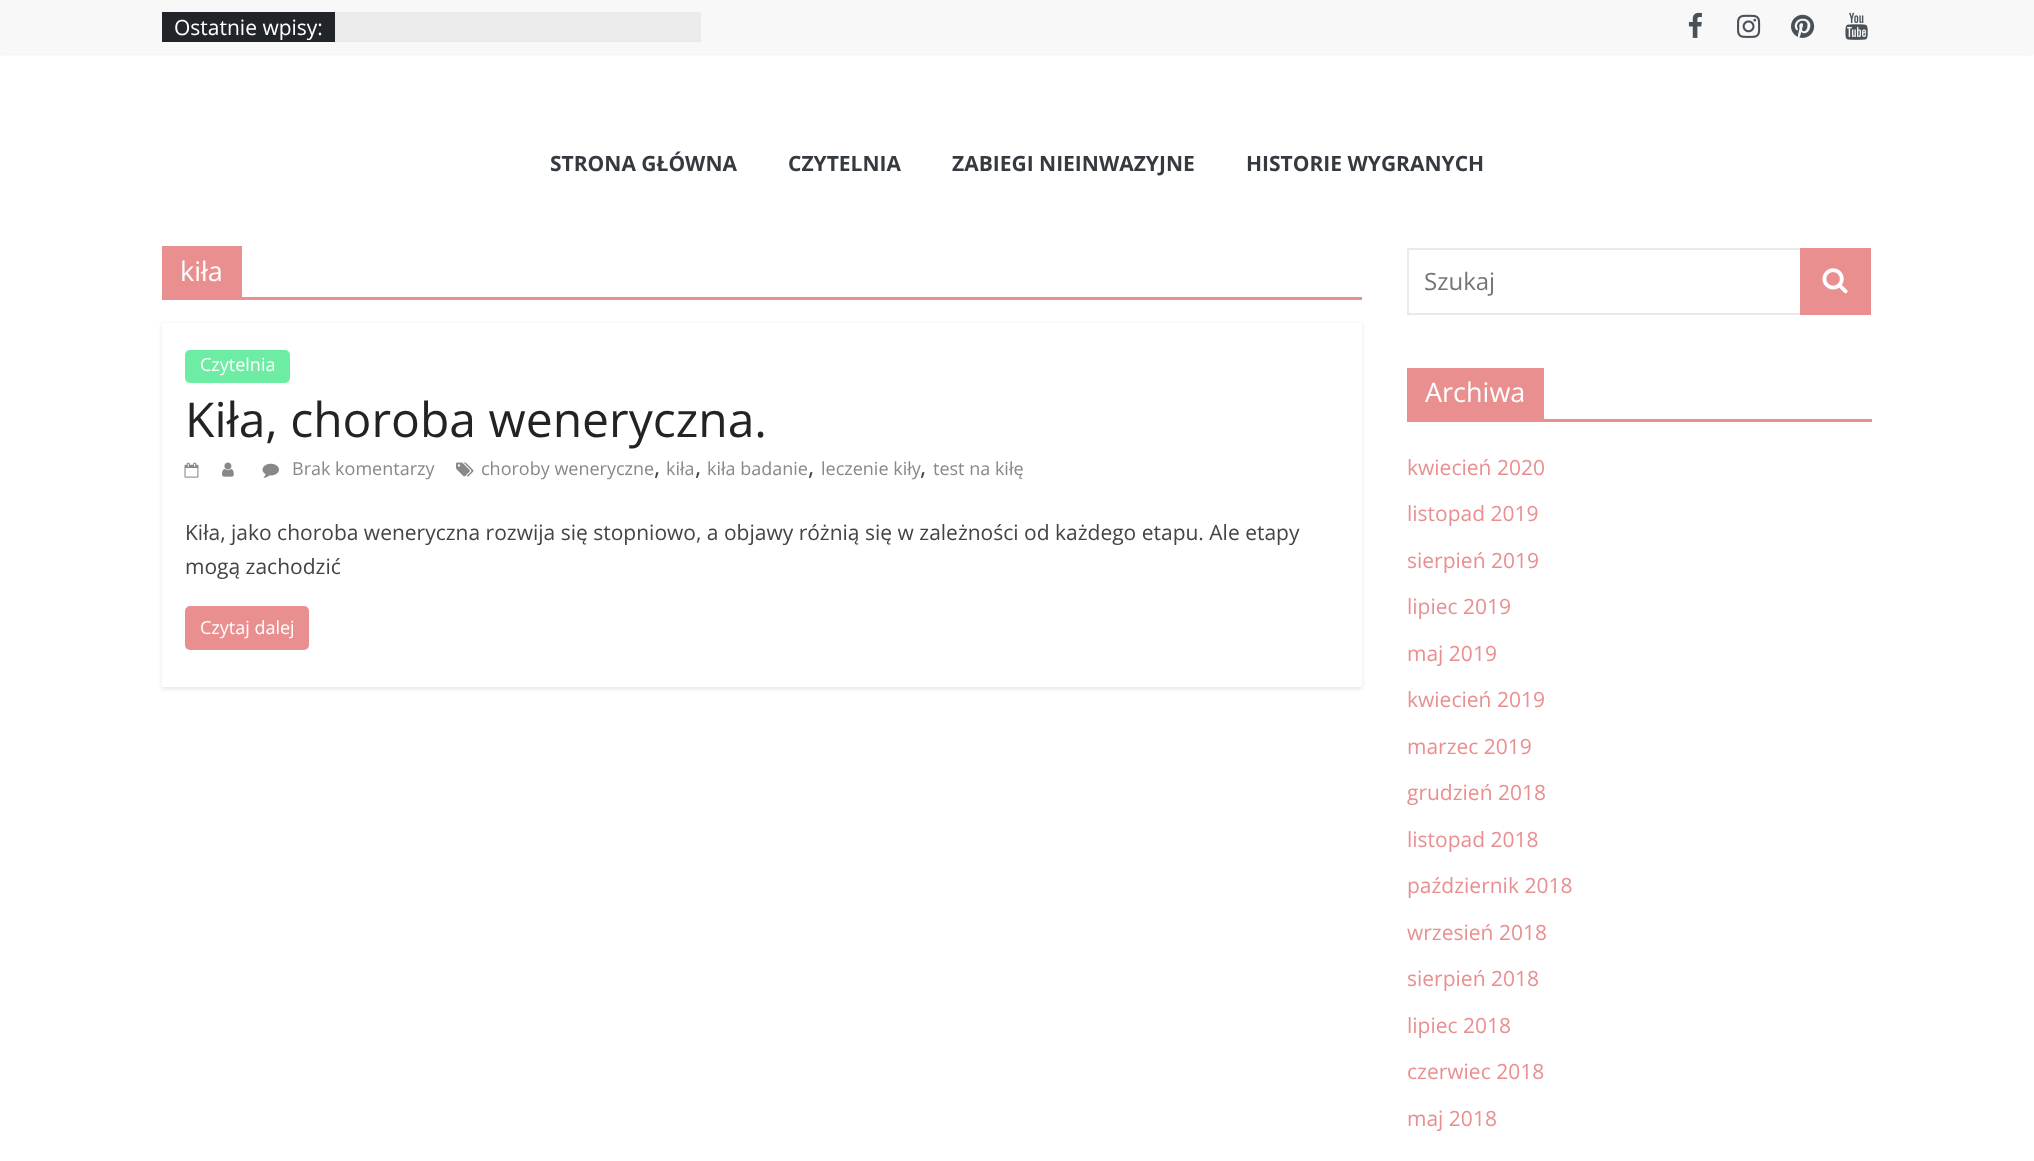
<!DOCTYPE html>
<meta charset="utf-8">
<style>body { margin: 0 } canvas { display: block }</style>
<canvas id="canvas" width="2034" height="1161"></canvas>
<img id="img1" src="img_01.png" hidden>
<img id="img2" src="img_02.png" hidden>
<img id="img3" src="img_03.png" hidden>
<img id="img4" src="img_04.png" hidden>
<img id="img5" src="img_05.png" hidden>
<img id="img6" src="img_06.png" hidden>
<img id="img7" src="img_07.png" hidden>
<img id="img8" src="img_08.png" hidden>
<img id="img9" src="img_09.png" hidden>
<script>
window.onload = function () {
	const canvas = document.getElementById("canvas");
	const ctx = canvas.getContext("2d");
	ctx.miterLimit = 4;
	ctx.fontKerning = "normal";
	function txt(s, x, y) {
		ctx.fillText(s, x, y);
	}
	function fill(x, y, w, h) {
		ctx.fillRect(x, y, w, h);
	}
	function round(x, y, w, h, r) {
		ctx.beginPath();
		ctx.roundRect(x, y, w, h, r);
		ctx.fill();
	}
	function img(id, x, y, w, h) {
		ctx.drawImage(document.getElementById(id), x, y, w, h);
	}

	ctx.fillStyle = "#FFFFFF";
	fill(0, 0, 2034, 1161);
	ctx.fillStyle = "rgba(0, 0, 0, 0.1)";
	ctx.filter = "blur(1.5px)";
	ctx.beginPath();
	ctx.rect(0, 0, 2034, 54);
	ctx.fill();
	ctx.filter = "none";
	ctx.fillStyle = "#F8F8F8";
	fill(0, 0, 2034, 54);
	ctx.fillStyle = "#EBEBEC";
	fill(335, 12, 366, 30);
	ctx.fillStyle = "#212529";
	fill(162, 12, 173, 30);
	img("img1", 1688, 12, 14, 26);
	img("img2", 1737, 14, 24, 24);
	img("img3", 1791, 14, 24, 24);
	img("img4", 1845, 12, 23, 28);
	ctx.fillStyle = "#EA8F90";
	fill(162, 297, 1200, 3);
	fill(162, 246, 80, 51);
	ctx.save();
	ctx.beginPath();
	ctx.moveTo(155, 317);
	ctx.lineTo(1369, 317);
	ctx.lineTo(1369, 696);
	ctx.lineTo(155, 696);
	ctx.closePath();
	ctx.moveTo(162, 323);
	ctx.lineTo(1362, 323);
	ctx.lineTo(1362, 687);
	ctx.lineTo(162, 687);
	ctx.closePath();
	ctx.clip("evenodd");
	ctx.fillStyle = "rgba(0, 0, 0, 0.1)";
	ctx.filter = "blur(2px)";
	ctx.beginPath();
	ctx.rect(162, 324, 1200, 365);
	ctx.fill();
	ctx.filter = "none";
	ctx.restore();
	ctx.fillStyle = "#6DEDA4";
	round(185, 350, 105, 33, 5);
	img("img5", 184, 462, 15, 16);
	img("img6", 222, 462, 12, 15);
	img("img7", 262, 463, 17, 15);
	img("img8", 456, 462, 18, 15);
	ctx.fillStyle = "#EA8F90";
	round(185, 606, 124, 44, 5);
	ctx.strokeStyle = "#EAEAEA";
	ctx.lineWidth = 2;
	ctx.strokeRect(1408, 249, 394, 65);
	fill(1800, 248, 71, 67);
	img("img9", 1822, 268, 26, 26);
	fill(1407, 419, 465, 3);
	fill(1407, 368, 137, 51);
	ctx.font = "21px Open Sans";
	ctx.fillStyle = "#FFFFFF";
	txt("Ostatnie wpisy:", 174, 35);
	ctx.font = "bold 21px Open Sans";
	ctx.fillStyle = "#343A40";
	txt("STRONA GŁÓWNA", 550, 171);
	txt("CZYTELNIA", 788, 171);
	txt("ZABIEGI NIEINWAZYJNE", 952, 171);
	txt("HISTORIE WYGRANYCH", 1246, 171);
	ctx.font = "27px Open Sans";
	ctx.fillStyle = "#FFFFFF";
	txt("kiła", 180, 281);
	ctx.font = "18px Open Sans";
	txt("Czytelnia", 200, 371);
	ctx.font = "48px Open Sans";
	ctx.fillStyle = "#232323";
	txt("Kiła, choroba weneryczna.", 185, 437);
	ctx.font = "18px Open Sans";
	ctx.fillStyle = "#888888";
	txt("Brak komentarzy", 292, 475);
	txt("choroby weneryczne", 481, 475);
	ctx.font = "24px Open Sans";
	ctx.fillStyle = "#444444";
	txt(",", 654, 475);
	ctx.font = "18px Open Sans";
	ctx.fillStyle = "#888888";
	txt("kiła", 666, 475);
	ctx.font = "24px Open Sans";
	ctx.fillStyle = "#444444";
	txt(",", 695, 475);
	ctx.font = "18px Open Sans";
	ctx.fillStyle = "#888888";
	txt("kiła badanie", 707, 475);
	ctx.font = "24px Open Sans";
	ctx.fillStyle = "#444444";
	txt(",", 808, 475);
	ctx.font = "18px Open Sans";
	ctx.fillStyle = "#888888";
	txt("leczenie kiły", 821, 475);
	ctx.font = "24px Open Sans";
	ctx.fillStyle = "#444444";
	txt(",", 920, 475);
	ctx.font = "18px Open Sans";
	ctx.fillStyle = "#888888";
	txt("test na kiłę", 933, 475);
	ctx.font = "21px Open Sans";
	ctx.fillStyle = "#444444";
	txt("Kiła, jako choroba weneryczna rozwija się stopniowo, a objawy różnią się w zależności od każdego etapu. Ale etapy", 185, 540);
	txt("mogą zachodzić", 185, 574);
	ctx.font = "18px Open Sans";
	ctx.fillStyle = "#FFFFFF";
	txt("Czytaj dalej", 200, 634);
	ctx.font = "24px Open Sans";
	ctx.fillStyle = "#757575";
	txt("Szukaj", 1424, 290);
	ctx.font = "27px Open Sans";
	ctx.fillStyle = "#FFFFFF";
	txt("Archiwa", 1425, 402);
	ctx.font = "21px Open Sans";
	ctx.fillStyle = "#EA8F90";
	txt("kwiecień 2020", 1407, 475);
	txt("listopad 2019", 1407, 521);
	txt("sierpień 2019", 1407, 568);
	txt("lipiec 2019", 1407, 614);
	txt("maj 2019", 1407, 661);
	txt("kwiecień 2019", 1407, 707);
	txt("marzec 2019", 1407, 754);
	txt("grudzień 2018", 1407, 800);
	txt("listopad 2018", 1407, 847);
	txt("październik 2018", 1407, 893);
	txt("wrzesień 2018", 1407, 940);
	txt("sierpień 2018", 1407, 986);
	txt("lipiec 2018", 1407, 1033);
	txt("czerwiec 2018", 1407, 1079);
	txt("maj 2018", 1407, 1126);
};
</script>
